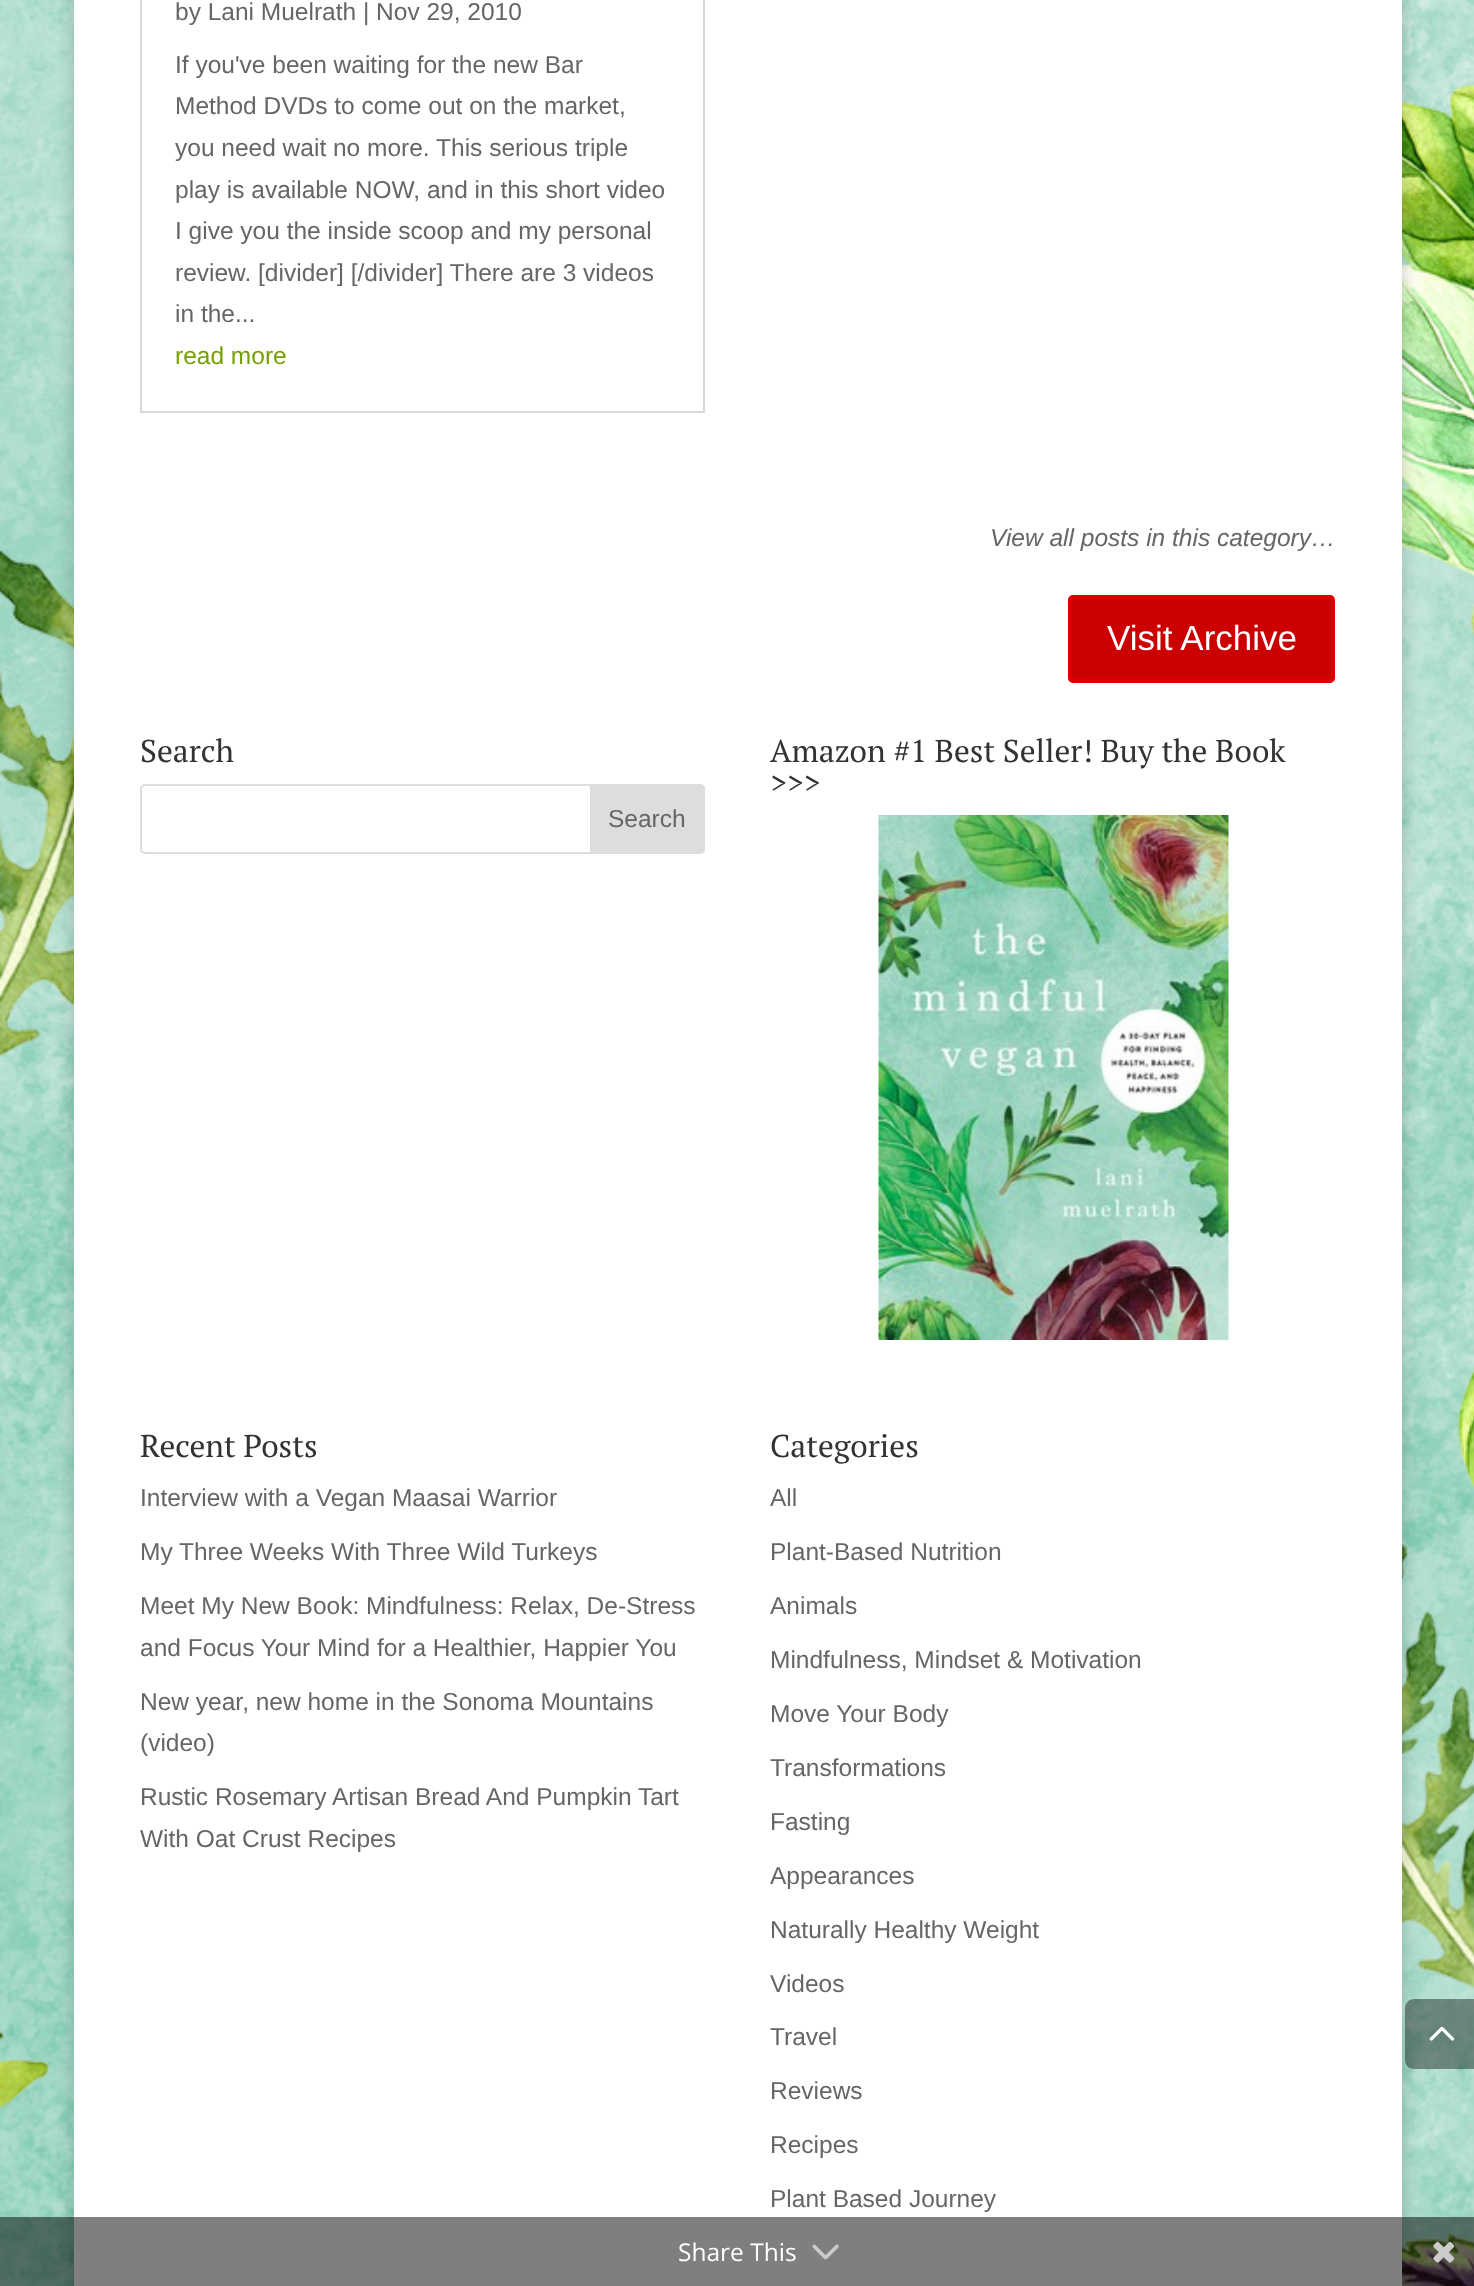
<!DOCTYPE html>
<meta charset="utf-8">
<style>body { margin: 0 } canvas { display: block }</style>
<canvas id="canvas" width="1474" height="2286"></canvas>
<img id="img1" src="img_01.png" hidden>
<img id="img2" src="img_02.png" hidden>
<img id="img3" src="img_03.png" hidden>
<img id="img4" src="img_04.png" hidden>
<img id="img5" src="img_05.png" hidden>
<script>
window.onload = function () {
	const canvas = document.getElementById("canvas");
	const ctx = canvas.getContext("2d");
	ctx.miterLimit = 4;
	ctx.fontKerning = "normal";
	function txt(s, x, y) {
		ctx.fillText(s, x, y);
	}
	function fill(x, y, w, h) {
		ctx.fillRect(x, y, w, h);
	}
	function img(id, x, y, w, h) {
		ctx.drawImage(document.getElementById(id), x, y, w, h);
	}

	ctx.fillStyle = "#FFFFFF";
	fill(0, 0, 1474, 2286);
	img("img1", 0, 0, 1474, 2286);
	ctx.fillStyle = "rgba(0, 0, 0, 0.2)";
	ctx.filter = "blur(9px)";
	ctx.beginPath();
	ctx.rect(74, -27, 1328, 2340);
	ctx.fill();
	ctx.filter = "none";
	ctx.fillStyle = "#FFFFFF";
	fill(74, 0, 1328, 2286);
	ctx.strokeStyle = "#D8D8D8";
	ctx.lineWidth = 2;
	ctx.strokeRect(141, -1, 563, 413);
	ctx.fillStyle = "#CC0000";
	ctx.beginPath();
	ctx.roundRect(1070, 597, 263, 84, 3);
	ctx.fill();
	ctx.strokeStyle = "#DD0000";
	ctx.lineWidth = 4;
	ctx.stroke();
	ctx.beginPath();
	ctx.roundRect(141, 785, 563, 68, 4);
	ctx.strokeStyle = "#DDDDDD";
	ctx.lineWidth = 2;
	ctx.stroke();
	ctx.fillStyle = "#DDDDDD";
	ctx.beginPath();
	ctx.roundRect(591, 785, 113, 68, [0, 4, 4, 0]);
	ctx.fill();
	ctx.stroke();
	img("img2", 878, 815, 351, 525);
	ctx.fillStyle = "rgba(0, 0, 0, 0.4)";
	ctx.beginPath();
	ctx.moveTo(1414, 1999);
	ctx.lineTo(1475, 1999);
	ctx.lineTo(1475, 2069);
	ctx.lineTo(1414, 2069);
	ctx.bezierCurveTo(1409, 2069, 1405, 2065, 1405, 2060);
	ctx.lineTo(1405, 2008);
	ctx.bezierCurveTo(1405, 2003, 1409, 1999, 1414, 1999);
	ctx.closePath();
	ctx.fill();
	img("img3", 1429, 2026, 26, 15);
	ctx.fillStyle = "rgba(0, 0, 0, 0.5)";
	fill(0, 2217, 1474, 69);
	img("img4", 812, 2244, 27, 16);
	img("img5", 1433, 2241, 22, 22);
	ctx.font = "24.5px Liberation Sans";
	ctx.fillStyle = "#666666";
	txt("by Lani Muelrath | Nov 29, 2010", 175, 20);
	txt("If you've been waiting for the new Bar", 175, 73);
	txt("Method DVDs to come out on the market,", 175, 114);
	txt("you need wait no more. This serious triple", 175, 156);
	txt("play is available NOW, and in this short video", 175, 198);
	txt("I give you the inside scoop and my personal", 175, 239);
	txt("review. [divider] [/divider] There are 3 videos", 175, 281);
	txt("in the...", 175, 322);
	ctx.fillStyle = "#75A000";
	txt("read more", 175, 364);
	ctx.font = "italic 24.5px Liberation Sans";
	ctx.fillStyle = "#666666";
	txt("View all posts in this category…", 990, 546);
	ctx.font = "35px Liberation Sans";
	ctx.fillStyle = "#FFFFFF";
	txt("Visit Archive", 1107, 650);
	ctx.font = "31.5px PT Serif";
	ctx.fillStyle = "#333333";
	txt("Search", 140, 762);
	ctx.font = "24.5px Liberation Sans";
	ctx.fillStyle = "#666666";
	txt("Search", 608, 827);
	ctx.font = "31.5px PT Serif";
	ctx.fillStyle = "#333333";
	txt("Amazon #1 Best Seller! Buy the Book", 770, 762);
	txt(">>>", 770, 794);
	txt("Recent Posts", 140, 1457);
	ctx.font = "24.5px Liberation Sans";
	ctx.fillStyle = "#666666";
	txt("Interview with a Vegan Maasai Warrior", 140, 1506);
	txt("My Three Weeks With Three Wild Turkeys", 140, 1560);
	txt("Meet My New Book: Mindfulness: Relax, De-Stress", 140, 1614);
	txt("and Focus Your Mind for a Healthier, Happier You", 140, 1656);
	txt("New year, new home in the Sonoma Mountains", 140, 1710);
	txt("(video)", 140, 1751);
	txt("Rustic Rosemary Artisan Bread And Pumpkin Tart", 140, 1805);
	txt("With Oat Crust Recipes", 140, 1847);
	ctx.font = "31.5px PT Serif";
	ctx.fillStyle = "#333333";
	txt("Categories", 770, 1457);
	ctx.font = "24.5px Liberation Sans";
	ctx.fillStyle = "#666666";
	txt("All", 770, 1506);
	txt("Plant-Based Nutrition", 770, 1560);
	txt("Animals", 770, 1614);
	txt("Mindfulness, Mindset & Motivation", 770, 1668);
	txt("Move Your Body", 770, 1722);
	txt("Transformations", 770, 1776);
	txt("Fasting", 770, 1830);
	txt("Appearances", 770, 1884);
	txt("Naturally Healthy Weight", 770, 1938);
	txt("Videos", 770, 1992);
	txt("Travel", 770, 2045);
	txt("Reviews", 770, 2099);
	txt("Recipes", 770, 2153);
	txt("Plant Based Journey", 770, 2207);
	ctx.font = "24.5px Open Sans";
	ctx.fillStyle = "#FFFFFF";
	txt("Share This", 678, 2261);
};
</script>
